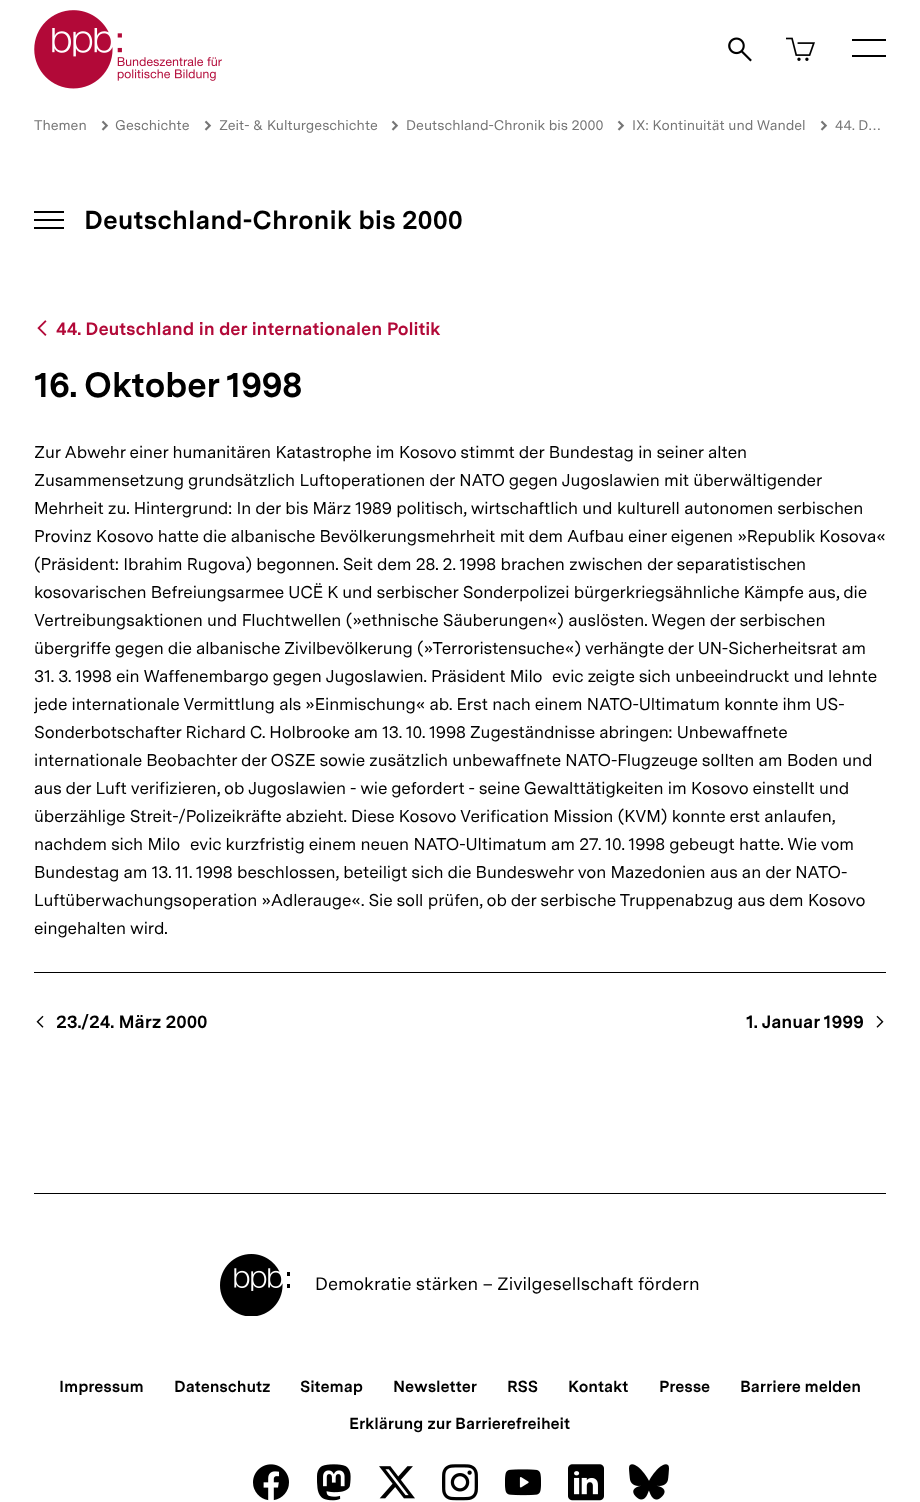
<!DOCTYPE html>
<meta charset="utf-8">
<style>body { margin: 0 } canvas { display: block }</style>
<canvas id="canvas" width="920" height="1502"></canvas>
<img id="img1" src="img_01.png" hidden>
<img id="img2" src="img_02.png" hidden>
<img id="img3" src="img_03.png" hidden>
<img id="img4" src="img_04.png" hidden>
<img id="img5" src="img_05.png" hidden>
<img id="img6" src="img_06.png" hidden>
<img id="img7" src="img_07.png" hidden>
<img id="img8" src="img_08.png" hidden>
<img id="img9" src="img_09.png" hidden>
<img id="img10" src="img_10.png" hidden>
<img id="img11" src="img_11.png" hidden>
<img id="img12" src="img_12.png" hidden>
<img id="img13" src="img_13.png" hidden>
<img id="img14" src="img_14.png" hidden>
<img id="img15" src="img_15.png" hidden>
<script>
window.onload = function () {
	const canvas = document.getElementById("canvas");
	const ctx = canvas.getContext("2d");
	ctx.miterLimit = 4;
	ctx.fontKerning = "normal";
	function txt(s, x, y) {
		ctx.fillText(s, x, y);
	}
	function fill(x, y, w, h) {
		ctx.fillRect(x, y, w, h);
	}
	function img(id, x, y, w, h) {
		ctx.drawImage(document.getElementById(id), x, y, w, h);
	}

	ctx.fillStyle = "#FFFFFF";
	fill(0, 0, 920, 1502);
	img("img1", 34, 10, 188, 79);
	img("img2", 728, 37, 24, 25);
	img("img3", 786, 37, 29, 24);
	ctx.fillStyle = "#000000";
	fill(852, 39, 34, 2);
	fill(852, 55, 34, 2);
	img("img4", 101, 120, 8, 11);
	img("img4", 204, 120, 8, 11);
	img("img4", 391, 120, 8, 11);
	img("img4", 617, 120, 8, 11);
	img("img4", 820, 120, 8, 11);
	fill(34, 219, 30, 2);
	fill(34, 211, 30, 2);
	fill(34, 227, 30, 2);
	img("img5", 37, 320, 10, 16);
	fill(34, 972, 852, 1);
	img("img6", 36, 1015, 8, 13);
	img("img7", 876, 1015, 8, 13);
	fill(34, 1193, 852, 1);
	img("img8", 220, 1254, 70, 62);
	img("img9", 253, 1464, 36, 37);
	img("img10", 317, 1464, 34, 37);
	img("img11", 379, 1466, 36, 33);
	img("img12", 442, 1464, 36, 37);
	img("img13", 505, 1469, 36, 27);
	img("img14", 568, 1464, 36, 37);
	img("img15", 629, 1464, 40, 36);
	ctx.font = "14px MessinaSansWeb";
	ctx.fillStyle = "#757575";
	txt("Themen", 34, 130);
	txt("Geschichte", 115, 130);
	txt("Zeit- & Kulturgeschichte", 219, 130);
	txt("Deutschland-Chronik bis 2000", 406, 130);
	txt("IX: Kontinuität und Wandel", 632, 130);
	txt("44. D…", 835, 130);
	ctx.font = "bold 26px MessinaSansWeb";
	ctx.fillStyle = "#000000";
	txt("Deutschland-Chronik bis 2000", 84, 229);
	ctx.letterSpacing = "-0.1px";
	ctx.font = "bold 18px MessinaSansWeb";
	ctx.fillStyle = "#B20938";
	txt("44. Deutschland in der internationalen Politik", 56, 335);
	ctx.letterSpacing = "-0.5px";
	ctx.font = "bold 35px MessinaSansWeb";
	ctx.fillStyle = "#000000";
	txt("16. Oktober 1998", 34, 397);
	ctx.letterSpacing = "-0.1px";
	ctx.font = "17px MessinaSansWeb";
	txt("Zur Abwehr einer humanitären Katastrophe im Kosovo stimmt der Bundestag in seiner alten", 34, 458);
	txt("Zusammensetzung grundsätzlich Luftoperationen der NATO gegen Jugoslawien mit überwältigender", 34, 486);
	txt("Mehrheit zu. Hintergrund: In der bis März 1989 politisch, wirtschaftlich und kulturell autonomen serbischen", 34, 514);
	txt("Provinz Kosovo hatte die albanische Bevölkerungsmehrheit mit dem Aufbau einer eigenen »Republik Kosova«", 34, 542);
	txt("(Präsident: Ibrahim Rugova) begonnen. Seit dem 28. 2. 1998 brachen zwischen der separatistischen", 34, 570);
	txt("kosovarischen Befreiungsarmee UCË K und serbischer Sonderpolizei bürgerkriegsähnliche Kämpfe aus, die", 34, 598);
	txt("Vertreibungsaktionen und Fluchtwellen (»ethnische Säuberungen«) auslösten. Wegen der serbischen", 34, 626);
	txt("übergriffe gegen die albanische Zivilbevölkerung (»Terroristensuche«) verhängte der UN-Sicherheitsrat am", 34, 654);
	txt("31. 3. 1998 ein Waffenembargo gegen Jugoslawien. Präsident Milo", 34, 682);
	txt("evic zeigte sich unbeeindruckt und lehnte", 552, 682);
	txt("jede internationale Vermittlung als »Einmischung« ab. Erst nach einem NATO-Ultimatum konnte ihm US-", 34, 710);
	txt("Sonderbotschafter Richard C. Holbrooke am 13. 10. 1998 Zugeständnisse abringen: Unbewaffnete", 34, 738);
	txt("internationale Beobachter der OSZE sowie zusätzlich unbewaffnete NATO-Flugzeuge sollten am Boden und", 34, 766);
	txt("aus der Luft verifizieren, ob Jugoslawien - wie gefordert - seine Gewalttätigkeiten im Kosovo einstellt und", 34, 794);
	txt("überzählige Streit-/Polizeikräfte abzieht. Diese Kosovo Verification Mission (KVM) konnte erst anlaufen,", 34, 822);
	txt("nachdem sich Milo", 34, 850);
	txt("evic kurzfristig einem neuen NATO-Ultimatum am 27. 10. 1998 gebeugt hatte. Wie vom", 190, 850);
	txt("Bundestag am 13. 11. 1998 beschlossen, beteiligt sich die Bundeswehr von Mazedonien aus an der NATO-", 34, 878);
	txt("Luftüberwachungsoperation »Adlerauge«. Sie soll prüfen, ob der serbische Truppenabzug aus dem Kosovo", 34, 906);
	txt("eingehalten wird.", 34, 934);
	ctx.font = "bold 18px MessinaSansWeb";
	txt("23./24. März 2000", 56, 1028);
	txt("1. Januar 1999", 746, 1028);
	ctx.letterSpacing = "0px";
	ctx.font = "18px MessinaSansWeb";
	txt("Demokratie stärken –", 315, 1290);
	txt("Zivilgesellschaft fördern", 497, 1290);
	ctx.letterSpacing = "-0.1px";
	ctx.font = "bold 16px MessinaSansWeb";
	txt("Impressum", 59, 1392);
	txt("Datenschutz", 174, 1392);
	txt("Sitemap", 300, 1392);
	txt("Newsletter", 393, 1392);
	txt("RSS", 507, 1392);
	txt("Kontakt", 568, 1392);
	txt("Presse", 659, 1392);
	txt("Barriere melden", 740, 1392);
	txt("Erklärung zur Barrierefreiheit", 349, 1429);
};
</script>
